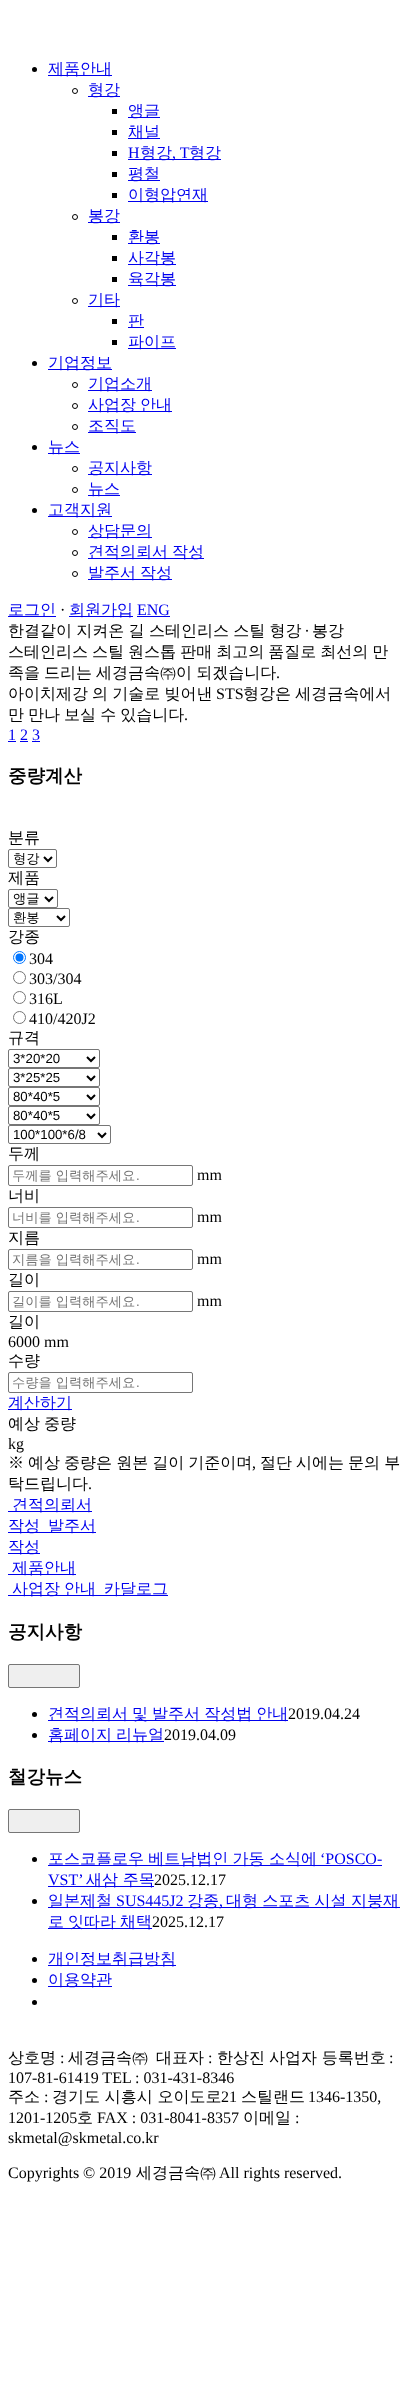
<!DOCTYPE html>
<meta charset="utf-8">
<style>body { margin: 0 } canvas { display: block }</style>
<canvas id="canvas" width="410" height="2388"></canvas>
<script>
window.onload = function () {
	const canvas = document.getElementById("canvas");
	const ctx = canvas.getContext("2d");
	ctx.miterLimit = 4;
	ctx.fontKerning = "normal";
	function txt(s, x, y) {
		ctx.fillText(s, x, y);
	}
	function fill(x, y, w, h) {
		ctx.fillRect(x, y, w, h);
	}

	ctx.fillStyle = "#FFFFFF";
	fill(0, 0, 410, 2388);
	ctx.fillStyle = "#000000";
	ctx.beginPath();
	ctx.arc(34.5, 69.5, 2.5, 0, Math.PI * 2);
	ctx.fill();
	ctx.fillStyle = "#0000EE";
	fill(48, 75, 64, 1);
	ctx.beginPath();
	ctx.arc(75, 91, 2.5, 0, Math.PI * 2);
	ctx.strokeStyle = "#000000";
	ctx.stroke();
	fill(88, 96, 32, 1);
	ctx.fillStyle = "#000000";
	fill(112, 109, 5, 5);
	ctx.fillStyle = "#0000EE";
	fill(128, 117, 32, 1);
	ctx.fillStyle = "#000000";
	fill(112, 130, 5, 5);
	ctx.fillStyle = "#0000EE";
	fill(128, 138, 32, 1);
	ctx.fillStyle = "#000000";
	fill(112, 151, 5, 5);
	ctx.fillStyle = "#0000EE";
	fill(128, 159, 93, 1);
	ctx.fillStyle = "#000000";
	fill(112, 172, 5, 5);
	ctx.fillStyle = "#0000EE";
	fill(128, 180, 32, 1);
	ctx.fillStyle = "#000000";
	fill(112, 193, 5, 5);
	ctx.fillStyle = "#0000EE";
	fill(128, 201, 80, 1);
	ctx.beginPath();
	ctx.arc(75, 217, 2.5, 0, Math.PI * 2);
	ctx.stroke();
	fill(88, 222, 32, 1);
	ctx.fillStyle = "#000000";
	fill(112, 235, 5, 5);
	ctx.fillStyle = "#0000EE";
	fill(128, 243, 32, 1);
	ctx.fillStyle = "#000000";
	fill(112, 256, 5, 5);
	ctx.fillStyle = "#0000EE";
	fill(128, 264, 48, 1);
	ctx.fillStyle = "#000000";
	fill(112, 277, 5, 5);
	ctx.fillStyle = "#0000EE";
	fill(128, 285, 48, 1);
	ctx.beginPath();
	ctx.arc(75, 301, 2.5, 0, Math.PI * 2);
	ctx.stroke();
	fill(88, 306, 32, 1);
	ctx.fillStyle = "#000000";
	fill(112, 319, 5, 5);
	ctx.fillStyle = "#0000EE";
	fill(128, 327, 16, 1);
	ctx.fillStyle = "#000000";
	fill(112, 340, 5, 5);
	ctx.fillStyle = "#0000EE";
	fill(128, 348, 48, 1);
	ctx.fillStyle = "#000000";
	ctx.beginPath();
	ctx.arc(34.5, 363.5, 2.5, 0, Math.PI * 2);
	ctx.fill();
	ctx.fillStyle = "#0000EE";
	fill(48, 369, 64, 1);
	ctx.beginPath();
	ctx.arc(75, 385, 2.5, 0, Math.PI * 2);
	ctx.stroke();
	fill(88, 390, 64, 1);
	ctx.beginPath();
	ctx.arc(75, 406, 2.5, 0, Math.PI * 2);
	ctx.stroke();
	fill(88, 411, 84, 1);
	ctx.beginPath();
	ctx.arc(75, 427, 2.5, 0, Math.PI * 2);
	ctx.stroke();
	fill(88, 432, 48, 1);
	ctx.fillStyle = "#000000";
	ctx.beginPath();
	ctx.arc(34.5, 447.5, 2.5, 0, Math.PI * 2);
	ctx.fill();
	ctx.fillStyle = "#0000EE";
	fill(48, 453, 32, 1);
	ctx.beginPath();
	ctx.arc(75, 469, 2.5, 0, Math.PI * 2);
	ctx.stroke();
	fill(88, 474, 64, 1);
	ctx.beginPath();
	ctx.arc(75, 490, 2.5, 0, Math.PI * 2);
	ctx.stroke();
	fill(88, 495, 32, 1);
	ctx.fillStyle = "#000000";
	ctx.beginPath();
	ctx.arc(34.5, 510.5, 2.5, 0, Math.PI * 2);
	ctx.fill();
	ctx.fillStyle = "#0000EE";
	fill(48, 516, 64, 1);
	ctx.beginPath();
	ctx.arc(75, 532, 2.5, 0, Math.PI * 2);
	ctx.stroke();
	fill(88, 537, 64, 1);
	ctx.beginPath();
	ctx.arc(75, 553, 2.5, 0, Math.PI * 2);
	ctx.stroke();
	fill(88, 558, 116, 1);
	ctx.beginPath();
	ctx.arc(75, 574, 2.5, 0, Math.PI * 2);
	ctx.stroke();
	fill(88, 579, 84, 1);
	fill(8, 616, 48, 1);
	fill(69, 616, 64, 1);
	fill(137, 616, 33, 1);
	fill(8, 741, 8, 1);
	fill(20, 741, 8, 1);
	fill(32, 741, 8, 1);
	ctx.beginPath();
	ctx.roundRect(8.5, 849.5, 48, 18, 1.5);
	ctx.strokeStyle = "#767676";
	ctx.stroke();
	ctx.beginPath();
	ctx.moveTo(44, 857);
	ctx.lineTo(48, 861);
	ctx.lineTo(52, 857);
	ctx.strokeStyle = "#000000";
	ctx.lineWidth = 2;
	ctx.stroke();
	ctx.beginPath();
	ctx.roundRect(8.5, 889.5, 49, 18, 1.5);
	ctx.strokeStyle = "#767676";
	ctx.lineWidth = 1;
	ctx.stroke();
	ctx.beginPath();
	ctx.moveTo(45, 897);
	ctx.lineTo(49, 901);
	ctx.lineTo(53, 897);
	ctx.strokeStyle = "#000000";
	ctx.lineWidth = 2;
	ctx.stroke();
	ctx.beginPath();
	ctx.roundRect(8.5, 908.5, 61, 18, 1.5);
	ctx.strokeStyle = "#767676";
	ctx.lineWidth = 1;
	ctx.stroke();
	ctx.beginPath();
	ctx.moveTo(57, 916);
	ctx.lineTo(61, 920);
	ctx.lineTo(65, 916);
	ctx.strokeStyle = "#000000";
	ctx.lineWidth = 2;
	ctx.stroke();
	ctx.beginPath();
	ctx.arc(19.5, 957.5, 6, 0, Math.PI * 2);
	ctx.strokeStyle = "#0075FF";
	ctx.lineWidth = 1;
	ctx.stroke();
	ctx.fillStyle = "#0075FF";
	ctx.beginPath();
	ctx.arc(19.5, 957.5, 4, 0, Math.PI * 2);
	ctx.fill();
	ctx.beginPath();
	ctx.arc(19.5, 977.5, 6, 0, Math.PI * 2);
	ctx.strokeStyle = "#767676";
	ctx.stroke();
	ctx.beginPath();
	ctx.arc(19.5, 997.5, 6, 0, Math.PI * 2);
	ctx.stroke();
	ctx.beginPath();
	ctx.arc(19.5, 1017.5, 6, 0, Math.PI * 2);
	ctx.stroke();
	ctx.beginPath();
	ctx.roundRect(8.5, 1049.5, 91, 18, 1.5);
	ctx.stroke();
	ctx.beginPath();
	ctx.moveTo(87, 1057);
	ctx.lineTo(91, 1061);
	ctx.lineTo(95, 1057);
	ctx.strokeStyle = "#000000";
	ctx.lineWidth = 2;
	ctx.stroke();
	ctx.beginPath();
	ctx.roundRect(8.5, 1068.5, 91, 18, 1.5);
	ctx.strokeStyle = "#767676";
	ctx.lineWidth = 1;
	ctx.stroke();
	ctx.beginPath();
	ctx.moveTo(87, 1076);
	ctx.lineTo(91, 1080);
	ctx.lineTo(95, 1076);
	ctx.strokeStyle = "#000000";
	ctx.lineWidth = 2;
	ctx.stroke();
	ctx.beginPath();
	ctx.roundRect(8.5, 1087.5, 91, 18, 1.5);
	ctx.strokeStyle = "#767676";
	ctx.lineWidth = 1;
	ctx.stroke();
	ctx.beginPath();
	ctx.moveTo(87, 1095);
	ctx.lineTo(91, 1099);
	ctx.lineTo(95, 1095);
	ctx.strokeStyle = "#000000";
	ctx.lineWidth = 2;
	ctx.stroke();
	ctx.beginPath();
	ctx.roundRect(8.5, 1106.5, 91, 18, 1.5);
	ctx.strokeStyle = "#767676";
	ctx.lineWidth = 1;
	ctx.stroke();
	ctx.beginPath();
	ctx.moveTo(87, 1114);
	ctx.lineTo(91, 1118);
	ctx.lineTo(95, 1114);
	ctx.strokeStyle = "#000000";
	ctx.lineWidth = 2;
	ctx.stroke();
	ctx.beginPath();
	ctx.roundRect(8.5, 1125.5, 102, 18, 1.5);
	ctx.strokeStyle = "#767676";
	ctx.lineWidth = 1;
	ctx.stroke();
	ctx.beginPath();
	ctx.moveTo(98, 1133);
	ctx.lineTo(102, 1137);
	ctx.lineTo(106, 1133);
	ctx.strokeStyle = "#000000";
	ctx.lineWidth = 2;
	ctx.stroke();
	ctx.beginPath();
	ctx.roundRect(8.5, 1165.5, 184, 20, 1.5);
	ctx.strokeStyle = "#767676";
	ctx.lineWidth = 1;
	ctx.stroke();
	ctx.beginPath();
	ctx.roundRect(8.5, 1207.5, 184, 20, 1.5);
	ctx.stroke();
	ctx.beginPath();
	ctx.roundRect(8.5, 1249.5, 184, 20, 1.5);
	ctx.stroke();
	ctx.beginPath();
	ctx.roundRect(8.5, 1291.5, 184, 20, 1.5);
	ctx.stroke();
	ctx.beginPath();
	ctx.roundRect(8.5, 1372.5, 184, 20, 1.5);
	ctx.stroke();
	ctx.fillStyle = "#0000EE";
	fill(8, 1409, 64, 1);
	fill(8, 1511, 84, 1);
	fill(8, 1532, 88, 1);
	fill(8, 1553, 32, 1);
	fill(8, 1574, 68, 1);
	fill(8, 1595, 160, 1);
	ctx.fillStyle = "#EFEFEF";
	ctx.beginPath();
	ctx.roundRect(8.5, 1664.5, 71, 23, 1.5);
	ctx.fill();
	ctx.stroke();
	ctx.fillStyle = "#000000";
	ctx.beginPath();
	ctx.arc(34.5, 1714.5, 2.5, 0, Math.PI * 2);
	ctx.fill();
	ctx.fillStyle = "#0000EE";
	fill(48, 1720, 240, 1);
	ctx.fillStyle = "#000000";
	ctx.beginPath();
	ctx.arc(34.5, 1735.5, 2.5, 0, Math.PI * 2);
	ctx.fill();
	ctx.fillStyle = "#0000EE";
	fill(48, 1741, 116, 1);
	ctx.fillStyle = "#EFEFEF";
	ctx.beginPath();
	ctx.roundRect(8.5, 1809.5, 71, 23, 1.5);
	ctx.fill();
	ctx.stroke();
	ctx.fillStyle = "#000000";
	ctx.beginPath();
	ctx.arc(34.5, 1859.5, 2.5, 0, Math.PI * 2);
	ctx.fill();
	ctx.fillStyle = "#0000EE";
	fill(48, 1865, 334, 1);
	fill(48, 1886, 106, 1);
	ctx.fillStyle = "#000000";
	ctx.beginPath();
	ctx.arc(34.5, 1901.5, 2.5, 0, Math.PI * 2);
	ctx.fill();
	ctx.fillStyle = "#0000EE";
	fill(48, 1907, 352, 1);
	fill(48, 1928, 104, 1);
	ctx.fillStyle = "#000000";
	ctx.beginPath();
	ctx.arc(34.5, 1959.5, 2.5, 0, Math.PI * 2);
	ctx.fill();
	ctx.fillStyle = "#0000EE";
	fill(48, 1965, 128, 1);
	ctx.fillStyle = "#000000";
	ctx.beginPath();
	ctx.arc(34.5, 1980.5, 2.5, 0, Math.PI * 2);
	ctx.fill();
	ctx.fillStyle = "#0000EE";
	fill(48, 1986, 64, 1);
	ctx.fillStyle = "#000000";
	ctx.beginPath();
	ctx.arc(34.5, 2002.5, 2.5, 0, Math.PI * 2);
	ctx.fill();
	ctx.font = "500 16px WenQuanYi Zen Hei";
	ctx.fillStyle = "#0000EE";
	txt("제품안내", 48, 74);
	txt("형강", 88, 95);
	txt("앵글", 128, 116);
	txt("채널", 128, 137);
	ctx.font = "16px Liberation Serif";
	txt("H", 128, 158);
	ctx.font = "500 16px WenQuanYi Zen Hei";
	txt("형강", 140, 158);
	ctx.font = "16px Liberation Serif";
	txt(", T", 172, 158);
	ctx.font = "500 16px WenQuanYi Zen Hei";
	txt("형강", 189, 158);
	txt("평철", 128, 179);
	txt("이형압연재", 128, 200);
	txt("봉강", 88, 221);
	txt("환봉", 128, 242);
	txt("사각봉", 128, 263);
	txt("육각봉", 128, 284);
	txt("기타", 88, 305);
	txt("판", 128, 326);
	txt("파이프", 128, 347);
	txt("기업정보", 48, 368);
	txt("기업소개", 88, 389);
	ctx.wordSpacing = "-0.75px";
	txt("사업장 안내", 88, 410);
	ctx.wordSpacing = "0px";
	txt("조직도", 88, 431);
	txt("뉴스", 48, 452);
	txt("공지사항", 88, 473);
	txt("뉴스", 88, 494);
	txt("고객지원", 48, 515);
	txt("상담문의", 88, 536);
	ctx.wordSpacing = "-0.75px";
	txt("견적의뢰서 작성", 88, 557);
	txt("발주서 작성", 88, 578);
	ctx.wordSpacing = "0px";
	txt("로그인", 8, 615);
	ctx.font = "16px Liberation Serif";
	ctx.fillStyle = "#000000";
	txt("·", 60, 615);
	ctx.font = "500 16px WenQuanYi Zen Hei";
	ctx.fillStyle = "#0000EE";
	txt("회원가입", 69, 615);
	ctx.font = "16px Liberation Serif";
	txt("ENG", 137, 615);
	ctx.wordSpacing = "-0.5px";
	ctx.font = "500 16px WenQuanYi Zen Hei";
	ctx.fillStyle = "#000000";
	txt("한결같이 지켜온 길 스테인리스 스틸 형강", 8, 636);
	ctx.wordSpacing = "0px";
	ctx.font = "16px Liberation Serif";
	txt("∙", 305, 636);
	ctx.font = "500 16px WenQuanYi Zen Hei";
	txt("봉강", 312, 636);
	ctx.wordSpacing = "-0.75px";
	txt("스테인리스 스틸 원스톱 판매 최고의 품질로 최선의 만", 8, 657);
	txt("족을 드리는 세경금속㈜이 되겠습니다", 8, 678);
	ctx.wordSpacing = "0px";
	ctx.font = "16px Liberation Serif";
	txt(".", 276, 678);
	ctx.font = "500 16px WenQuanYi Zen Hei";
	txt("아이치제강", 8, 699);
	ctx.wordSpacing = "-0.5px";
	txt("의 기술로 빚어낸", 92, 699);
	ctx.wordSpacing = "0px";
	ctx.font = "16px Liberation Serif";
	txt("STS", 216, 699);
	ctx.wordSpacing = "-0.5px";
	ctx.font = "500 16px WenQuanYi Zen Hei";
	txt("형강은 세경금속에서", 243, 699);
	ctx.wordSpacing = "-0.75px";
	txt("만 만나 보실 수 있습니다", 8, 720);
	ctx.wordSpacing = "0px";
	ctx.font = "16px Liberation Serif";
	txt(".", 184, 720);
	ctx.fillStyle = "#0000EE";
	txt("1 2 3", 8, 740);
	ctx.font = "bold 18.5px WenQuanYi Zen Hei";
	ctx.fillStyle = "#000000";
	txt("중량계산", 8, 782);
	ctx.font = "500 16px WenQuanYi Zen Hei";
	txt("분류", 8, 843);
	ctx.font = "500 13.25px WenQuanYi Zen Hei";
	txt("형강", 13, 863);
	ctx.font = "500 16px WenQuanYi Zen Hei";
	txt("제품", 8, 883);
	ctx.font = "500 13.25px WenQuanYi Zen Hei";
	txt("앵글", 13, 903);
	txt("환봉", 13, 922);
	ctx.font = "500 16px WenQuanYi Zen Hei";
	txt("강종", 8, 942);
	ctx.font = "16px Liberation Serif";
	txt("304", 29, 964);
	txt("303/304", 29, 984);
	txt("316L", 29, 1004);
	txt("410/420J2", 29, 1024);
	ctx.font = "500 16px WenQuanYi Zen Hei";
	txt("규격", 8, 1043);
	ctx.font = "13.25px Liberation Sans";
	txt("3*20*20", 13, 1063);
	txt("3*25*25", 13, 1082);
	txt("80*40*5", 13, 1101);
	txt("80*40*5", 13, 1120);
	txt("100*100*6/8", 13, 1139);
	ctx.font = "500 16px WenQuanYi Zen Hei";
	txt("두께", 8, 1159);
	ctx.font = "500 13.25px WenQuanYi Zen Hei";
	ctx.fillStyle = "#757575";
	txt("두께를 입력해주세요", 12, 1180);
	ctx.font = "13.25px Liberation Sans";
	txt(".", 136, 1180);
	ctx.font = "16px Liberation Serif";
	ctx.fillStyle = "#000000";
	txt("mm", 197, 1180);
	ctx.font = "500 16px WenQuanYi Zen Hei";
	txt("너비", 8, 1201);
	ctx.font = "500 13.25px WenQuanYi Zen Hei";
	ctx.fillStyle = "#757575";
	txt("너비를 입력해주세요", 12, 1222);
	ctx.font = "13.25px Liberation Sans";
	txt(".", 136, 1222);
	ctx.font = "16px Liberation Serif";
	ctx.fillStyle = "#000000";
	txt("mm", 197, 1222);
	ctx.font = "500 16px WenQuanYi Zen Hei";
	txt("지름", 8, 1243);
	ctx.font = "500 13.25px WenQuanYi Zen Hei";
	ctx.fillStyle = "#757575";
	txt("지름을 입력해주세요", 12, 1264);
	ctx.font = "13.25px Liberation Sans";
	txt(".", 136, 1264);
	ctx.font = "16px Liberation Serif";
	ctx.fillStyle = "#000000";
	txt("mm", 197, 1264);
	ctx.font = "500 16px WenQuanYi Zen Hei";
	txt("길이", 8, 1285);
	ctx.font = "500 13.25px WenQuanYi Zen Hei";
	ctx.fillStyle = "#757575";
	txt("길이를 입력해주세요", 12, 1306);
	ctx.font = "13.25px Liberation Sans";
	txt(".", 136, 1306);
	ctx.font = "16px Liberation Serif";
	ctx.fillStyle = "#000000";
	txt("mm", 197, 1306);
	ctx.font = "500 16px WenQuanYi Zen Hei";
	txt("길이", 8, 1327);
	ctx.font = "16px Liberation Serif";
	txt("6000 mm", 8, 1347);
	ctx.font = "500 16px WenQuanYi Zen Hei";
	txt("수량", 8, 1366);
	ctx.font = "500 13.25px WenQuanYi Zen Hei";
	ctx.fillStyle = "#757575";
	txt("수량을 입력해주세요", 12, 1387);
	ctx.font = "13.25px Liberation Sans";
	txt(".", 136, 1387);
	ctx.font = "500 16px WenQuanYi Zen Hei";
	ctx.fillStyle = "#0000EE";
	txt("계산하기", 8, 1408);
	ctx.wordSpacing = "-0.75px";
	ctx.fillStyle = "#000000";
	txt("예상 중량", 8, 1429);
	ctx.wordSpacing = "0px";
	ctx.font = "16px Liberation Serif";
	txt("kg", 8, 1449);
	ctx.wordSpacing = "-0.75px";
	ctx.font = "500 16px WenQuanYi Zen Hei";
	txt("※ 예상 중량은 원본 길이 기준이며", 8, 1468);
	ctx.wordSpacing = "0px";
	ctx.font = "16px Liberation Serif";
	txt(",", 252, 1468);
	ctx.wordSpacing = "-0.75px";
	ctx.font = "500 16px WenQuanYi Zen Hei";
	txt("절단 시에는 문의 부", 260, 1468);
	ctx.wordSpacing = "0px";
	txt("탁드립니다", 8, 1489);
	ctx.font = "16px Liberation Serif";
	txt(".", 88, 1489);
	ctx.font = "500 16px WenQuanYi Zen Hei";
	ctx.fillStyle = "#0000EE";
	txt("견적의뢰서", 12, 1510);
	txt("작성", 8, 1531);
	txt("발주서", 48, 1531);
	txt("작성", 8, 1552);
	txt("제품안내", 12, 1573);
	ctx.wordSpacing = "-0.75px";
	txt("사업장 안내", 12, 1594);
	ctx.wordSpacing = "0px";
	txt("카달로그", 104, 1594);
	ctx.font = "bold 18.5px WenQuanYi Zen Hei";
	ctx.fillStyle = "#000000";
	txt("공지사항", 8, 1638);
	ctx.wordSpacing = "-0.75px";
	ctx.font = "500 16px WenQuanYi Zen Hei";
	ctx.fillStyle = "#0000EE";
	txt("견적의뢰서 및 발주서 작성법 안내", 48, 1719);
	ctx.wordSpacing = "0px";
	ctx.font = "16px Liberation Serif";
	ctx.fillStyle = "#000000";
	txt("2019.04.24", 288, 1719);
	ctx.wordSpacing = "-0.75px";
	ctx.font = "500 16px WenQuanYi Zen Hei";
	ctx.fillStyle = "#0000EE";
	txt("홈페이지 리뉴얼", 48, 1740);
	ctx.wordSpacing = "0px";
	ctx.font = "16px Liberation Serif";
	ctx.fillStyle = "#000000";
	txt("2019.04.09", 164, 1740);
	ctx.font = "bold 18.5px WenQuanYi Zen Hei";
	txt("철강뉴스", 8, 1783);
	ctx.wordSpacing = "-0.5px";
	ctx.font = "500 16px WenQuanYi Zen Hei";
	ctx.fillStyle = "#0000EE";
	txt("포스코플로우 베트남법인 가동 소식에", 48, 1864);
	ctx.wordSpacing = "0px";
	ctx.font = "16px Liberation Serif";
	txt("‘POSCO-", 320, 1864);
	txt("VST’", 48, 1885);
	ctx.font = "500 16px WenQuanYi Zen Hei";
	txt("새삼 주목", 86, 1885);
	ctx.font = "16px Liberation Serif";
	ctx.fillStyle = "#000000";
	txt("2025.12.17", 154, 1885);
	ctx.font = "500 16px WenQuanYi Zen Hei";
	ctx.fillStyle = "#0000EE";
	txt("일본제철", 48, 1906);
	ctx.font = "16px Liberation Serif";
	txt("SUS445J2", 116, 1906);
	ctx.font = "500 16px WenQuanYi Zen Hei";
	txt("강종", 187, 1906);
	ctx.wordSpacing = "-0.5px";
	txt("대형 스포츠 시설 지붕재", 226, 1906);
	ctx.wordSpacing = "0px";
	ctx.font = "16px Liberation Serif";
	txt(",", 219, 1906);
	ctx.wordSpacing = "-0.75px";
	ctx.font = "500 16px WenQuanYi Zen Hei";
	txt("로 잇따라 채택", 48, 1927);
	ctx.wordSpacing = "0px";
	ctx.font = "16px Liberation Serif";
	ctx.fillStyle = "#000000";
	txt("2025.12.17", 152, 1927);
	ctx.font = "500 16px WenQuanYi Zen Hei";
	ctx.fillStyle = "#0000EE";
	txt("개인정보취급방침", 48, 1964);
	txt("이용약관", 48, 1985);
	ctx.fillStyle = "#000000";
	txt("상호명", 8, 2063);
	ctx.font = "16px Liberation Serif";
	txt(":", 60, 2063);
	ctx.font = "500 16px WenQuanYi Zen Hei";
	txt("세경금속㈜", 68, 2063);
	txt("대표자", 156, 2063);
	ctx.font = "16px Liberation Serif";
	txt(":", 208, 2063);
	ctx.font = "500 16px WenQuanYi Zen Hei";
	txt("한상진", 217, 2063);
	txt("사업자 등록번호", 269, 2063);
	ctx.font = "16px Liberation Serif";
	txt(":", 389, 2063);
	txt("107-81-61419 TEL : 031-431-8346", 8, 2083);
	ctx.font = "500 16px WenQuanYi Zen Hei";
	txt("주소", 8, 2102);
	ctx.font = "16px Liberation Serif";
	txt(":", 44, 2102);
	ctx.font = "500 16px WenQuanYi Zen Hei";
	txt("경기도 시흥시 오이도로", 52, 2102);
	ctx.font = "16px Liberation Serif";
	txt("21", 221, 2102);
	ctx.font = "500 16px WenQuanYi Zen Hei";
	txt("스틸랜드", 241, 2102);
	ctx.font = "16px Liberation Serif";
	txt("1346-1350,", 308, 2102);
	txt("1201-1205", 8, 2123);
	ctx.font = "500 16px WenQuanYi Zen Hei";
	txt("호", 77, 2123);
	ctx.font = "16px Liberation Serif";
	txt("FAX : 031-8041-8357", 97, 2123);
	ctx.font = "500 16px WenQuanYi Zen Hei";
	txt("이메일", 243, 2123);
	ctx.font = "16px Liberation Serif";
	txt(":", 295, 2123);
	txt("skmetal@skmetal.co.kr", 8, 2143);
	txt("Copyrights © 2019", 8, 2178);
	ctx.font = "500 16px WenQuanYi Zen Hei";
	txt("세경금속㈜", 136, 2178);
	ctx.font = "16px Liberation Serif";
	txt("All rights reserved.", 219, 2178);
};
</script>
